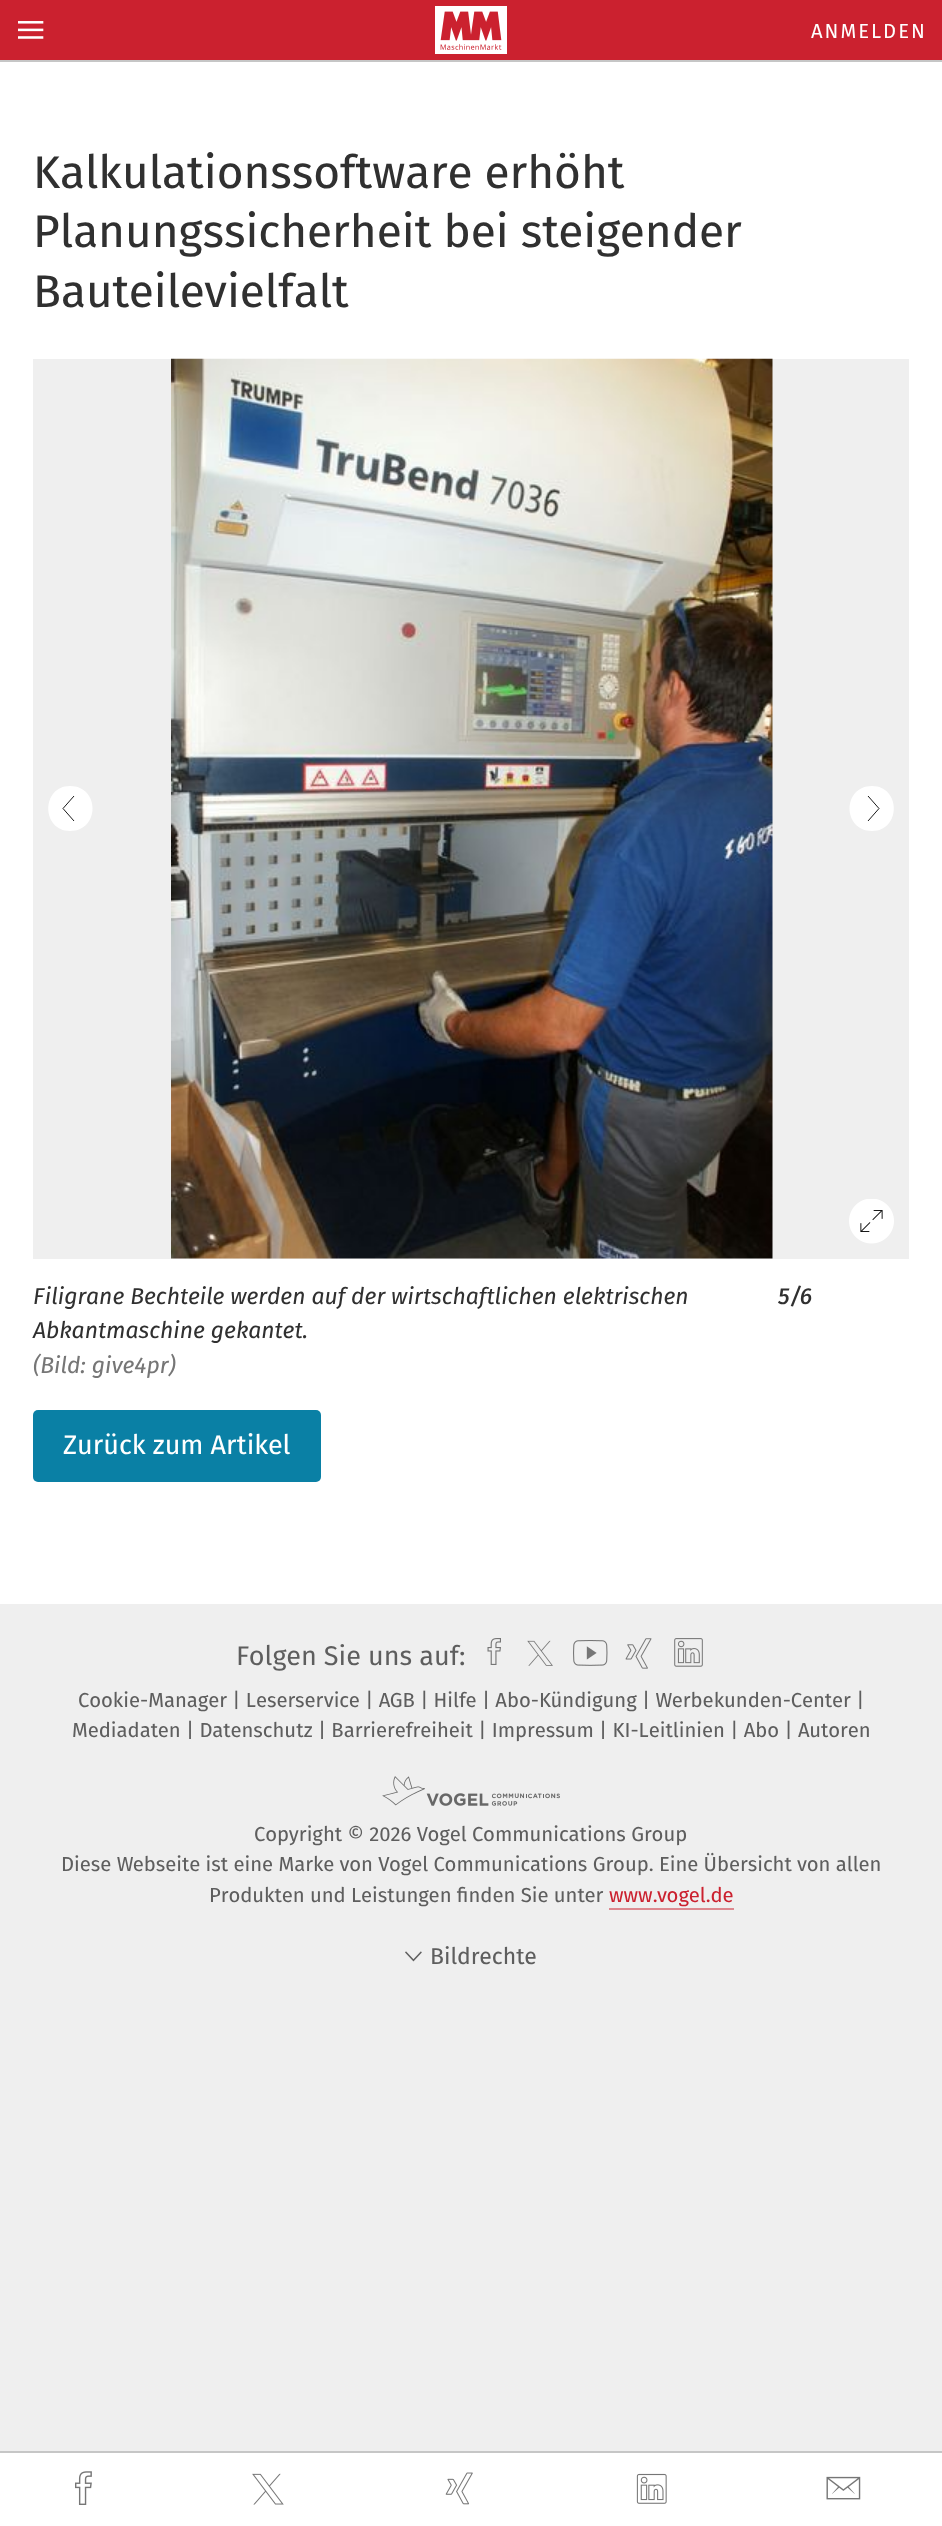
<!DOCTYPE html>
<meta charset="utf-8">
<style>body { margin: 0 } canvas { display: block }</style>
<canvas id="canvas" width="942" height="2526"></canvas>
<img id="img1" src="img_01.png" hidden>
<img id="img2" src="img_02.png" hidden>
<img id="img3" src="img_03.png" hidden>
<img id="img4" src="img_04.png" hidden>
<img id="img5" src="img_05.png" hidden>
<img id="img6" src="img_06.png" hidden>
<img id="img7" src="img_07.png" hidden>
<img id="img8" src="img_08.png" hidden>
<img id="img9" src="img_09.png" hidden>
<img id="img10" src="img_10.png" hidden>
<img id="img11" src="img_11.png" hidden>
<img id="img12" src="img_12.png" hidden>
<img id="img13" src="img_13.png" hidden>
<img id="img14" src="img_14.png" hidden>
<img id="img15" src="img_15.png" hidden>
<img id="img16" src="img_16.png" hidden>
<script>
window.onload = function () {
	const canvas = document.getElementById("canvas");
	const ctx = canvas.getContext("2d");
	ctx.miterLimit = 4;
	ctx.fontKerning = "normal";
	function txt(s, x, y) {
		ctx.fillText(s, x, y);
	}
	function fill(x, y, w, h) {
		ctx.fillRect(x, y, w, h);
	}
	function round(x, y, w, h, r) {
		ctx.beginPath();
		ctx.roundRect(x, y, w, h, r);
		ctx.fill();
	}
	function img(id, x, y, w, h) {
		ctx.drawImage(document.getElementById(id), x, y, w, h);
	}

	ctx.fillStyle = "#EFEFEF";
	fill(0, 0, 942, 2526);
	ctx.fillStyle = "#FFFFFF";
	fill(0, 62, 942, 1542);
	ctx.fillStyle = "#C6C6C6";
	fill(0, 60, 942, 2);
	ctx.fillStyle = "#CB212F";
	fill(0, 0, 942, 60);
	img("img1", 18, 21, 26, 18);
	img("img2", 435, 6, 72, 48);
	ctx.fillStyle = "#EFEFEF";
	fill(33, 359, 876, 900);
	ctx.fillStyle = "#FFFFFF";
	ctx.beginPath();
	ctx.moveTo(70, 831);
	ctx.bezierCurveTo(100, 831, 100, 786, 70, 786);
	ctx.bezierCurveTo(41, 786, 41, 831, 70, 831);
	ctx.fill();
	ctx.beginPath();
	ctx.moveTo(74, 796);
	ctx.lineTo(63, 808.5);
	ctx.lineTo(74, 821);
	ctx.strokeStyle = "#000000";
	ctx.lineWidth = 0.9;
	ctx.stroke();
	img("img3", 171, 358, 602, 901);
	ctx.beginPath();
	ctx.moveTo(872, 786);
	ctx.bezierCurveTo(842, 786, 842, 831, 872, 831);
	ctx.bezierCurveTo(901, 831, 901, 786, 872, 786);
	ctx.fill();
	ctx.beginPath();
	ctx.moveTo(868, 821);
	ctx.lineTo(879, 808.5);
	ctx.lineTo(868, 796);
	ctx.stroke();
	img("img4", 849, 1199, 45, 45);
	ctx.fillStyle = "#0A80A5";
	round(33, 1410, 288, 72, 5);
	ctx.fillStyle = "#FFFFFF";
	fill(0, 2453, 942, 73);
	ctx.fillStyle = "#C6C6C6";
	fill(0, 2451, 942, 2);
	img("img5", 75, 2471, 17, 34);
	img("img6", 252, 2473, 32, 32);
	img("img7", 445, 2472, 28, 33);
	img("img8", 636, 2473, 31, 31);
	img("img9", 826, 2476, 35, 24);
	img("img10", 487, 1638, 14, 27);
	img("img11", 527, 1640, 26, 26);
	img("img12", 573, 1640, 35, 26);
	img("img13", 625, 1638, 27, 31);
	img("img14", 674, 1638, 29, 29);
	img("img15", 382, 1776, 178, 30);
	ctx.fillStyle = "#DD888F";
	fill(609, 1908, 125, 2);
	img("img16", 405, 1951, 17, 11);
	ctx.letterSpacing = "2px";
	ctx.font = "20.25px 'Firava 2'";
	ctx.fillStyle = "#FFFFFF";
	txt("ANMELDEN", 811, 38);
	ctx.letterSpacing = "0px";
	ctx.font = "45.9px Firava";
	ctx.fillStyle = "#303030";
	txt("Kalkulationssoftware erhöht", 33, 188);
	txt("Planungssicherheit bei steigender", 33, 247);
	txt("Bauteilevielfalt", 33, 307);
	ctx.font = "italic 22.95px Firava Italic";
	txt("Filigrane Bechteile werden auf der wirtschaftlichen elektrischen", 33, 1304);
	txt("Abkantmaschine gekantet.", 33, 1338);
	ctx.fillStyle = "#767676";
	txt("(Bild: give4pr)", 33, 1373);
	ctx.font = "italic 500 22.95px Firava Italic";
	ctx.fillStyle = "#303030";
	txt("5/6", 778, 1304);
	ctx.font = "27px Firava";
	ctx.fillStyle = "#FFFFFF";
	txt("Zurück zum Artikel", 63, 1454);
	ctx.font = "27px 'Firava 2'";
	ctx.fillStyle = "#5E5E5E";
	txt("Folgen Sie uns auf:", 236, 1665);
	ctx.font = "20.25px Firava";
	txt("Cookie-Manager | Leserservice | AGB | Hilfe | Abo-Kündigung | Werbekunden-Center |", 78, 1707);
	txt("Mediadaten | Datenschutz | Barrierefreiheit | Impressum | KI-Leitlinien | Abo | Autoren", 72, 1737);
	txt("Copyright © 2026 Vogel Communications Group", 254, 1841);
	txt("Diese Webseite ist eine Marke von Vogel Communications Group. Eine Übersicht von allen", 61, 1871);
	txt("Produkten und Leistungen finden Sie unter", 209, 1902);
	ctx.fillStyle = "#CB212F";
	txt("www.vogel.de", 609, 1902);
	ctx.font = "22.95px Firava";
	ctx.fillStyle = "#5E5E5E";
	txt("Bildrechte", 430, 1964);
};
</script>
